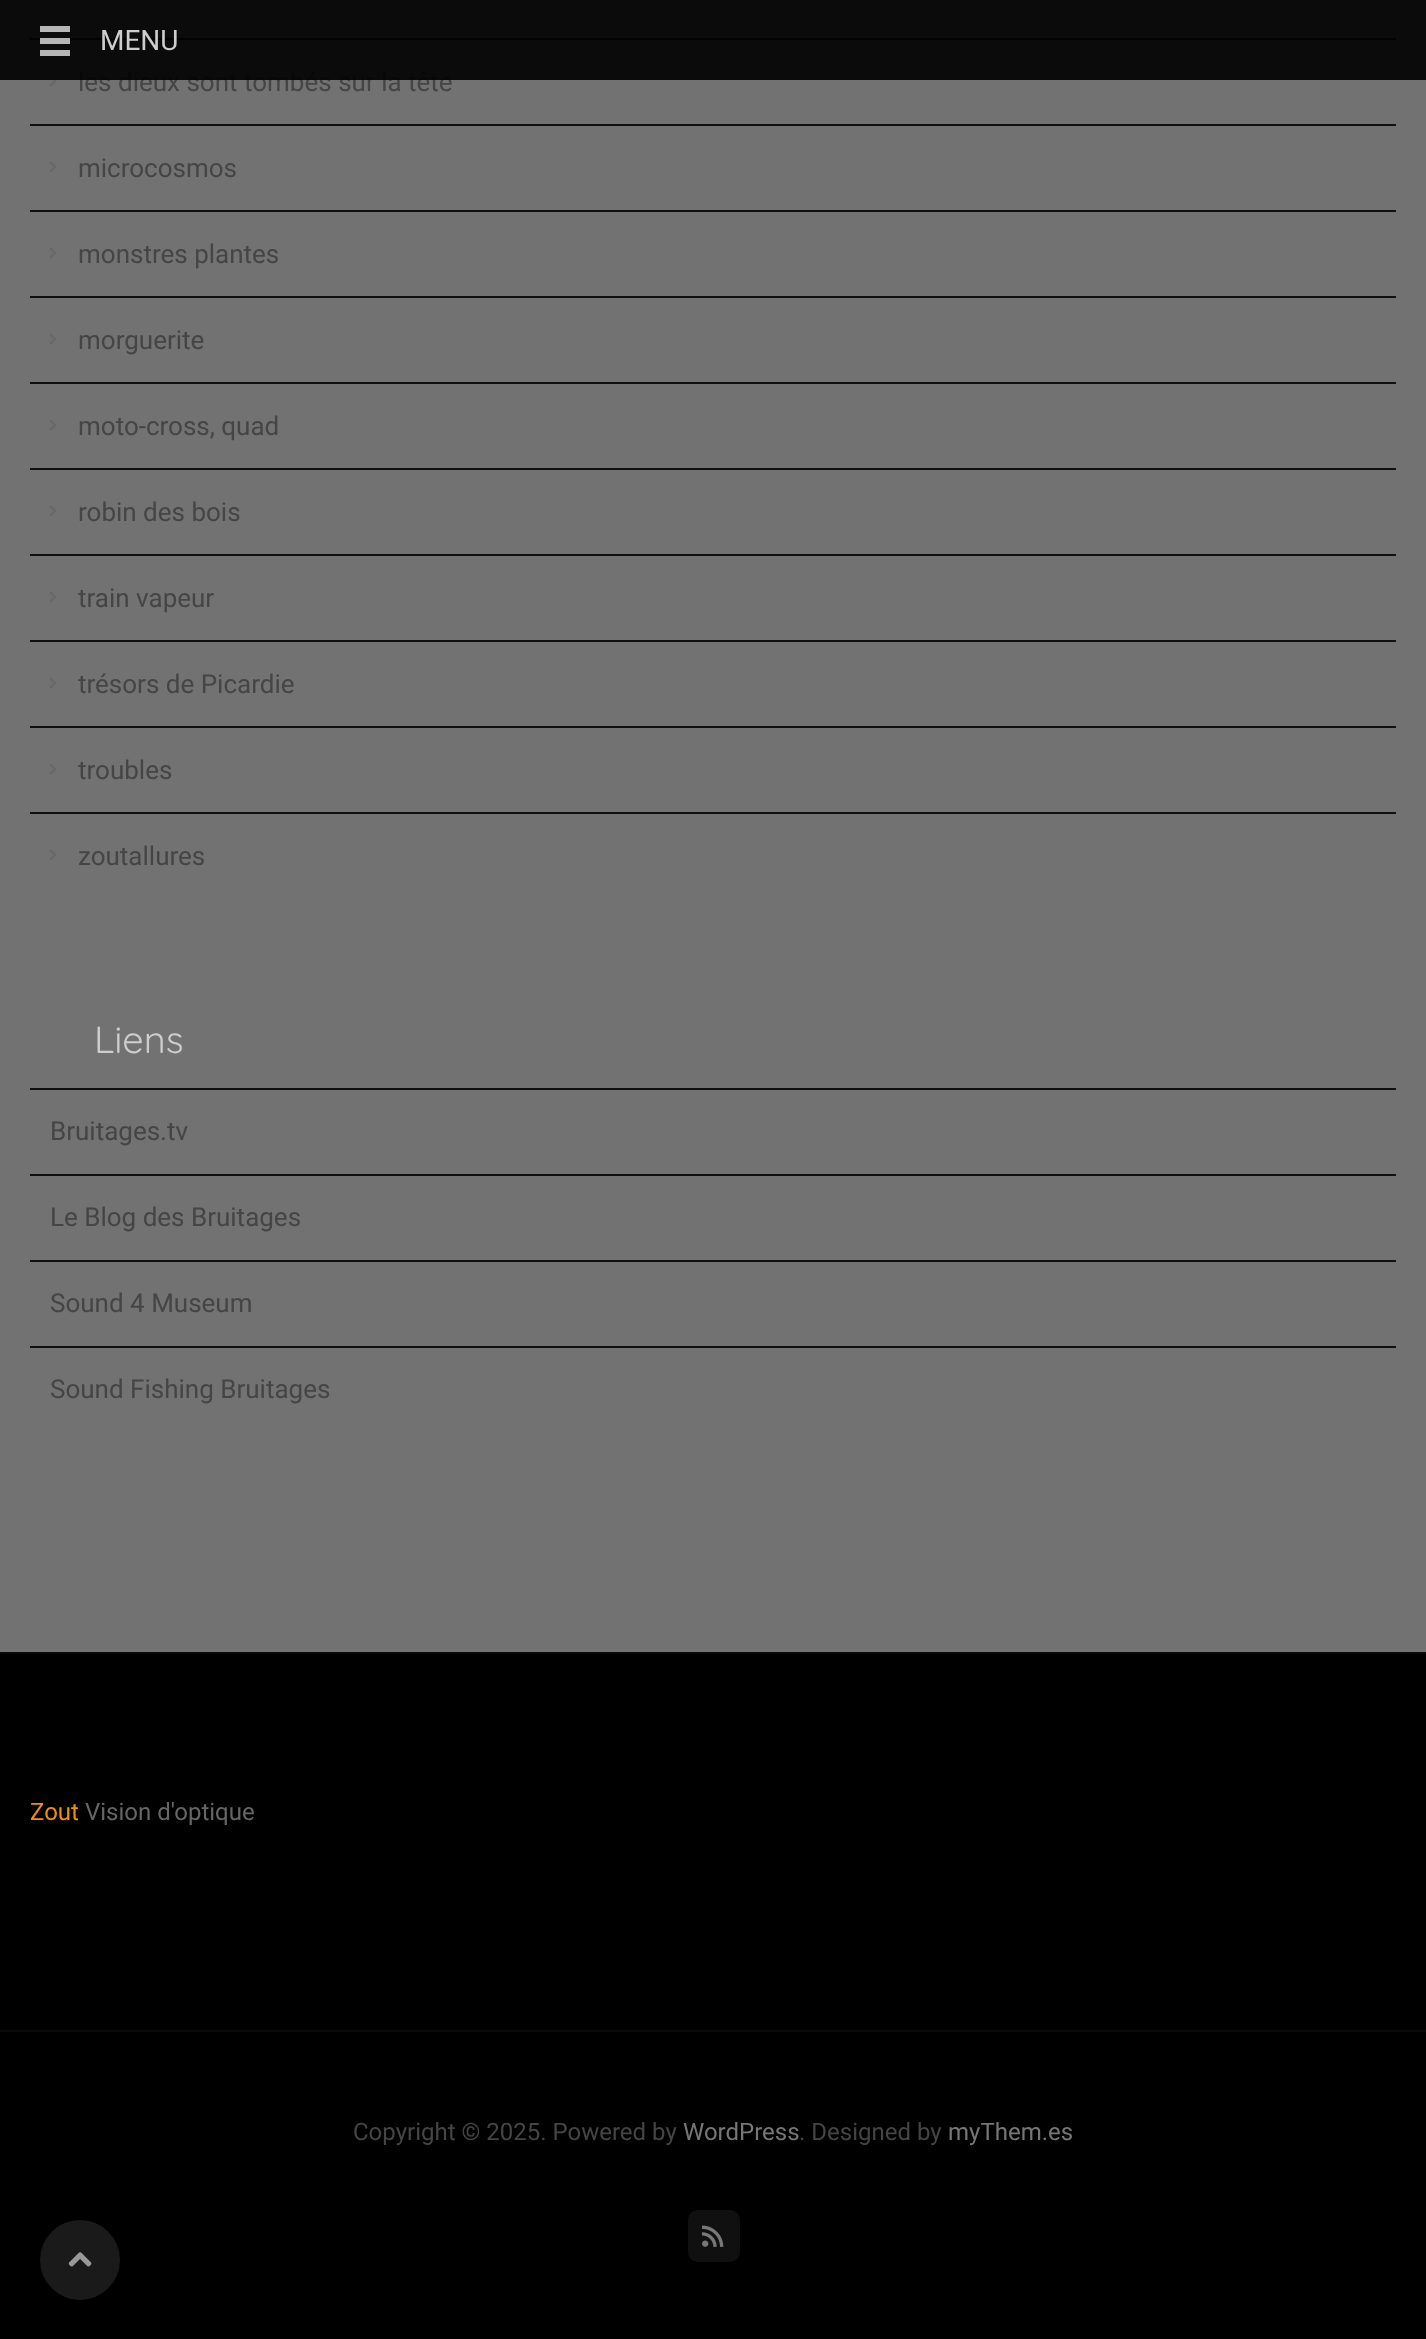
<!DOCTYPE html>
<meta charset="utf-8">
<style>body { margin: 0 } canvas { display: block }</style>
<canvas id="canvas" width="1426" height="2339"></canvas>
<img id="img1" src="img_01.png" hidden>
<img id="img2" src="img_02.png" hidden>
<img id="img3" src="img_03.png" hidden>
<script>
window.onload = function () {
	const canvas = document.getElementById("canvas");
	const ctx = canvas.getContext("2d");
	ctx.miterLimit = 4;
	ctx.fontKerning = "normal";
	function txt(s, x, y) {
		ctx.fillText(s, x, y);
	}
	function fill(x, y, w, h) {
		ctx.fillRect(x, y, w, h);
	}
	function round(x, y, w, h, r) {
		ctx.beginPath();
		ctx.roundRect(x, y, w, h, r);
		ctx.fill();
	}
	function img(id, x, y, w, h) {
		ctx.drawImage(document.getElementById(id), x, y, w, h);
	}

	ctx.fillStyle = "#000000";
	fill(0, 0, 1426, 2339);
	ctx.fillStyle = "#727272";
	fill(0, 0, 1426, 1652);
	ctx.fillStyle = "#101010";
	fill(30, 38, 1366, 2);
	img("img1", 50, 76, 6, 10);
	fill(30, 124, 1366, 2);
	img("img1", 50, 162, 6, 10);
	fill(30, 210, 1366, 2);
	img("img1", 50, 248, 6, 10);
	fill(30, 296, 1366, 2);
	img("img1", 50, 334, 6, 10);
	fill(30, 382, 1366, 2);
	img("img1", 50, 420, 6, 10);
	fill(30, 468, 1366, 2);
	img("img1", 50, 506, 6, 10);
	fill(30, 554, 1366, 2);
	img("img1", 50, 592, 6, 10);
	fill(30, 640, 1366, 2);
	img("img1", 50, 678, 6, 10);
	fill(30, 726, 1366, 2);
	img("img1", 50, 764, 6, 10);
	fill(30, 812, 1366, 2);
	img("img1", 50, 850, 6, 10);
	fill(30, 1088, 1366, 2);
	fill(30, 1174, 1366, 2);
	fill(30, 1260, 1366, 2);
	fill(30, 1346, 1366, 2);
	ctx.fillStyle = "#0A0A0A";
	fill(0, 1652, 1426, 2);
	fill(0, 2030, 1426, 2);
	ctx.fillStyle = "#101010";
	round(688, 2210, 52, 52, 10);
	img("img2", 702, 2225, 22, 22);
	ctx.fillStyle = "#1A1A1A";
	ctx.beginPath();
	ctx.arc(80, 2260, 40, 0, Math.PI * 2);
	ctx.fill();
	img("img3", 68, 2252, 24, 15);
	ctx.font = "26px Roboto";
	ctx.fillStyle = "#454545";
	txt("les dieux sont tombés sur la tête", 78, 91);
	ctx.fillStyle = "rgba(0, 0, 0, 0.9)";
	fill(0, 0, 1426, 80);
	ctx.font = "28px Roboto";
	ctx.fillStyle = "#CDCDCD";
	txt("MENU", 100, 50);
	ctx.fillStyle = "#B6B6B6";
	fill(40, 50, 30, 6);
	ctx.fillStyle = "rgba(255, 255, 255, 0.7)";
	fill(40, 38, 30, 6);
	ctx.fillStyle = "#B6B6B6";
	fill(40, 26, 30, 6);
	ctx.font = "26px Roboto";
	ctx.fillStyle = "#454545";
	txt("microcosmos", 78, 177);
	txt("monstres plantes", 78, 263);
	txt("morguerite", 78, 349);
	txt("moto-cross, quad", 78, 435);
	txt("robin des bois", 78, 521);
	txt("train vapeur", 78, 607);
	txt("trésors de Picardie", 78, 693);
	txt("troubles", 78, 779);
	txt("zoutallures", 78, 865);
	ctx.font = "38px Quicksand";
	ctx.fillStyle = "#CDCDCD";
	txt("Liens", 94, 1053);
	ctx.font = "26px Roboto";
	ctx.fillStyle = "#454545";
	txt("Bruitages.tv", 50, 1140);
	txt("Le Blog des Bruitages", 50, 1226);
	txt("Sound 4 Museum", 50, 1312);
	txt("Sound Fishing Bruitages", 50, 1398);
	ctx.font = "24px Roboto";
	ctx.fillStyle = "#F28E0B";
	txt("Zout", 30, 1820);
	ctx.fillStyle = "#666666";
	txt("Vision d'optique", 85, 1820);
	ctx.fillStyle = "#454545";
	txt("Copyright © 2025. Powered by", 353, 2140);
	ctx.fillStyle = "#777777";
	txt("WordPress", 683, 2140);
	ctx.fillStyle = "#454545";
	txt(". Designed by", 799, 2140);
	ctx.fillStyle = "#777777";
	txt("myThem.es", 948, 2140);
};
</script>
